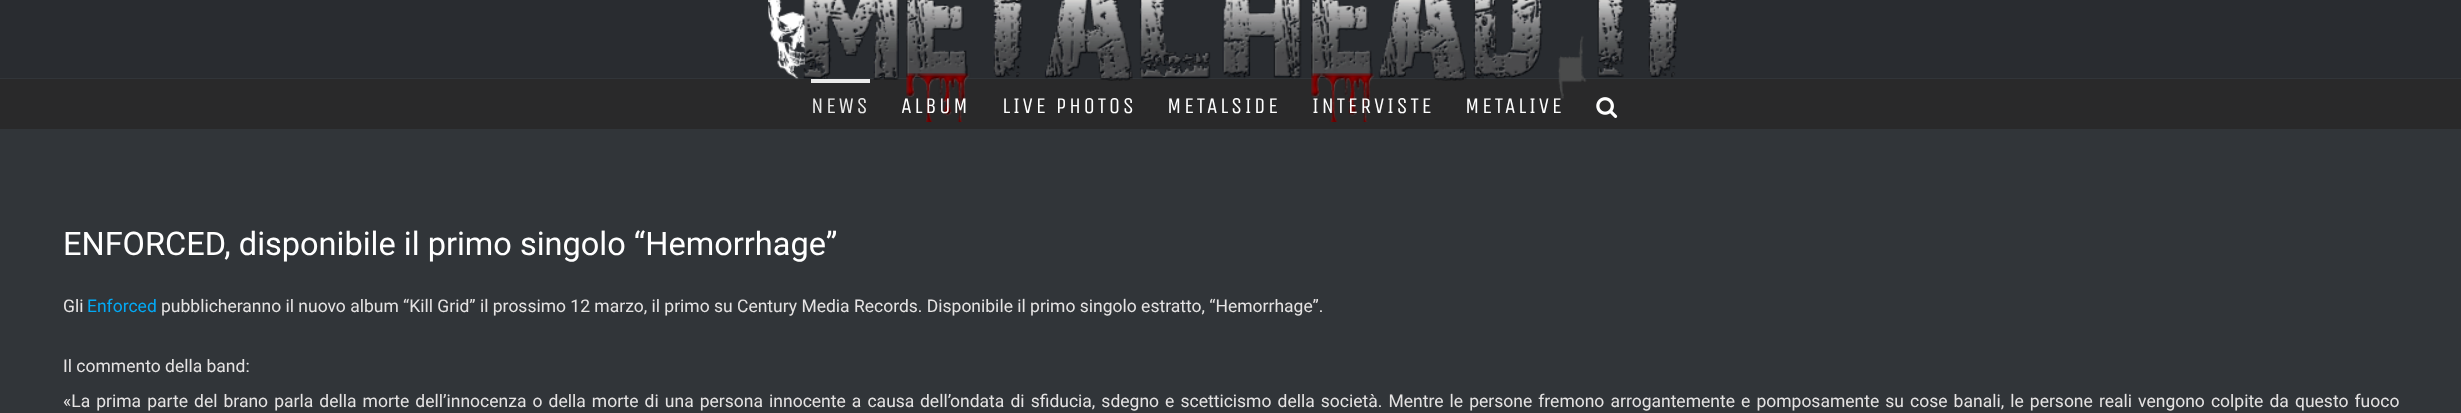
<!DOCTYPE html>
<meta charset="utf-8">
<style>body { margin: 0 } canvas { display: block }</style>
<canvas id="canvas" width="2461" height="413"></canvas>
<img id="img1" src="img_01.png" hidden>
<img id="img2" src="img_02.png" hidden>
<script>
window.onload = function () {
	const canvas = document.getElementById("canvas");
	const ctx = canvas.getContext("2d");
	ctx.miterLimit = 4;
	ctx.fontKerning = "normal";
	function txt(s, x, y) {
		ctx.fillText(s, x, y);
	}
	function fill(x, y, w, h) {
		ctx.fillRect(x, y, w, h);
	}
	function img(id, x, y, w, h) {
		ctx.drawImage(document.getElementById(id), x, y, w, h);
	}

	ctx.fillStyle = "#313539";
	fill(0, 0, 2461, 413);
	ctx.fillStyle = "#292C30";
	fill(0, 0, 2461, 78);
	ctx.fillStyle = "#29292A";
	fill(0, 79, 2461, 50);
	img("img1", 768, 0, 910, 122);
	ctx.fillStyle = "#EAEAEA";
	fill(811, 79, 59, 4);
	img("img2", 1596, 97, 22, 21);
	ctx.letterSpacing = "2.5px";
	ctx.font = "22.5px Unica One";
	txt("NEWS", 811, 113);
	ctx.fillStyle = "#FFFFFF";
	txt("ALBUM", 901, 113);
	txt("LIVE PHOTOS", 1002, 113);
	txt("METALSIDE", 1167, 113);
	txt("INTERVISTE", 1312, 113);
	txt("METALIVE", 1465, 113);
	ctx.letterSpacing = "0px";
	ctx.font = "32.5px Roboto";
	txt("ENFORCED, disponibile il primo singolo “Hemorrhage”", 63, 255);
	ctx.font = "17.5px Roboto";
	ctx.fillStyle = "#E5E3E3";
	txt("Gli", 63, 312);
	ctx.fillStyle = "#03A9F4";
	txt("Enforced", 87, 312);
	ctx.fillStyle = "#E5E3E3";
	txt("pubblicheranno il nuovo album “Kill Grid” il prossimo 12 marzo, il primo su Century Media Records. Disponibile il primo singolo estratto, “Hemorrhage”.", 161, 312);
	txt("Il commento della band:", 63, 372);
	ctx.wordSpacing = "1.75px";
	txt("«La prima parte del brano parla della morte dell’innocenza o della morte di una persona innocente a causa", 63, 407);
	txt("dell’ondata di sfiducia, sdegno e scetticismo della società. Mentre le persone fremono arrogantemente e pomposamente su cose banali, le persone reali vengono colpite da questo fuoco", 920, 407);
};
</script>
